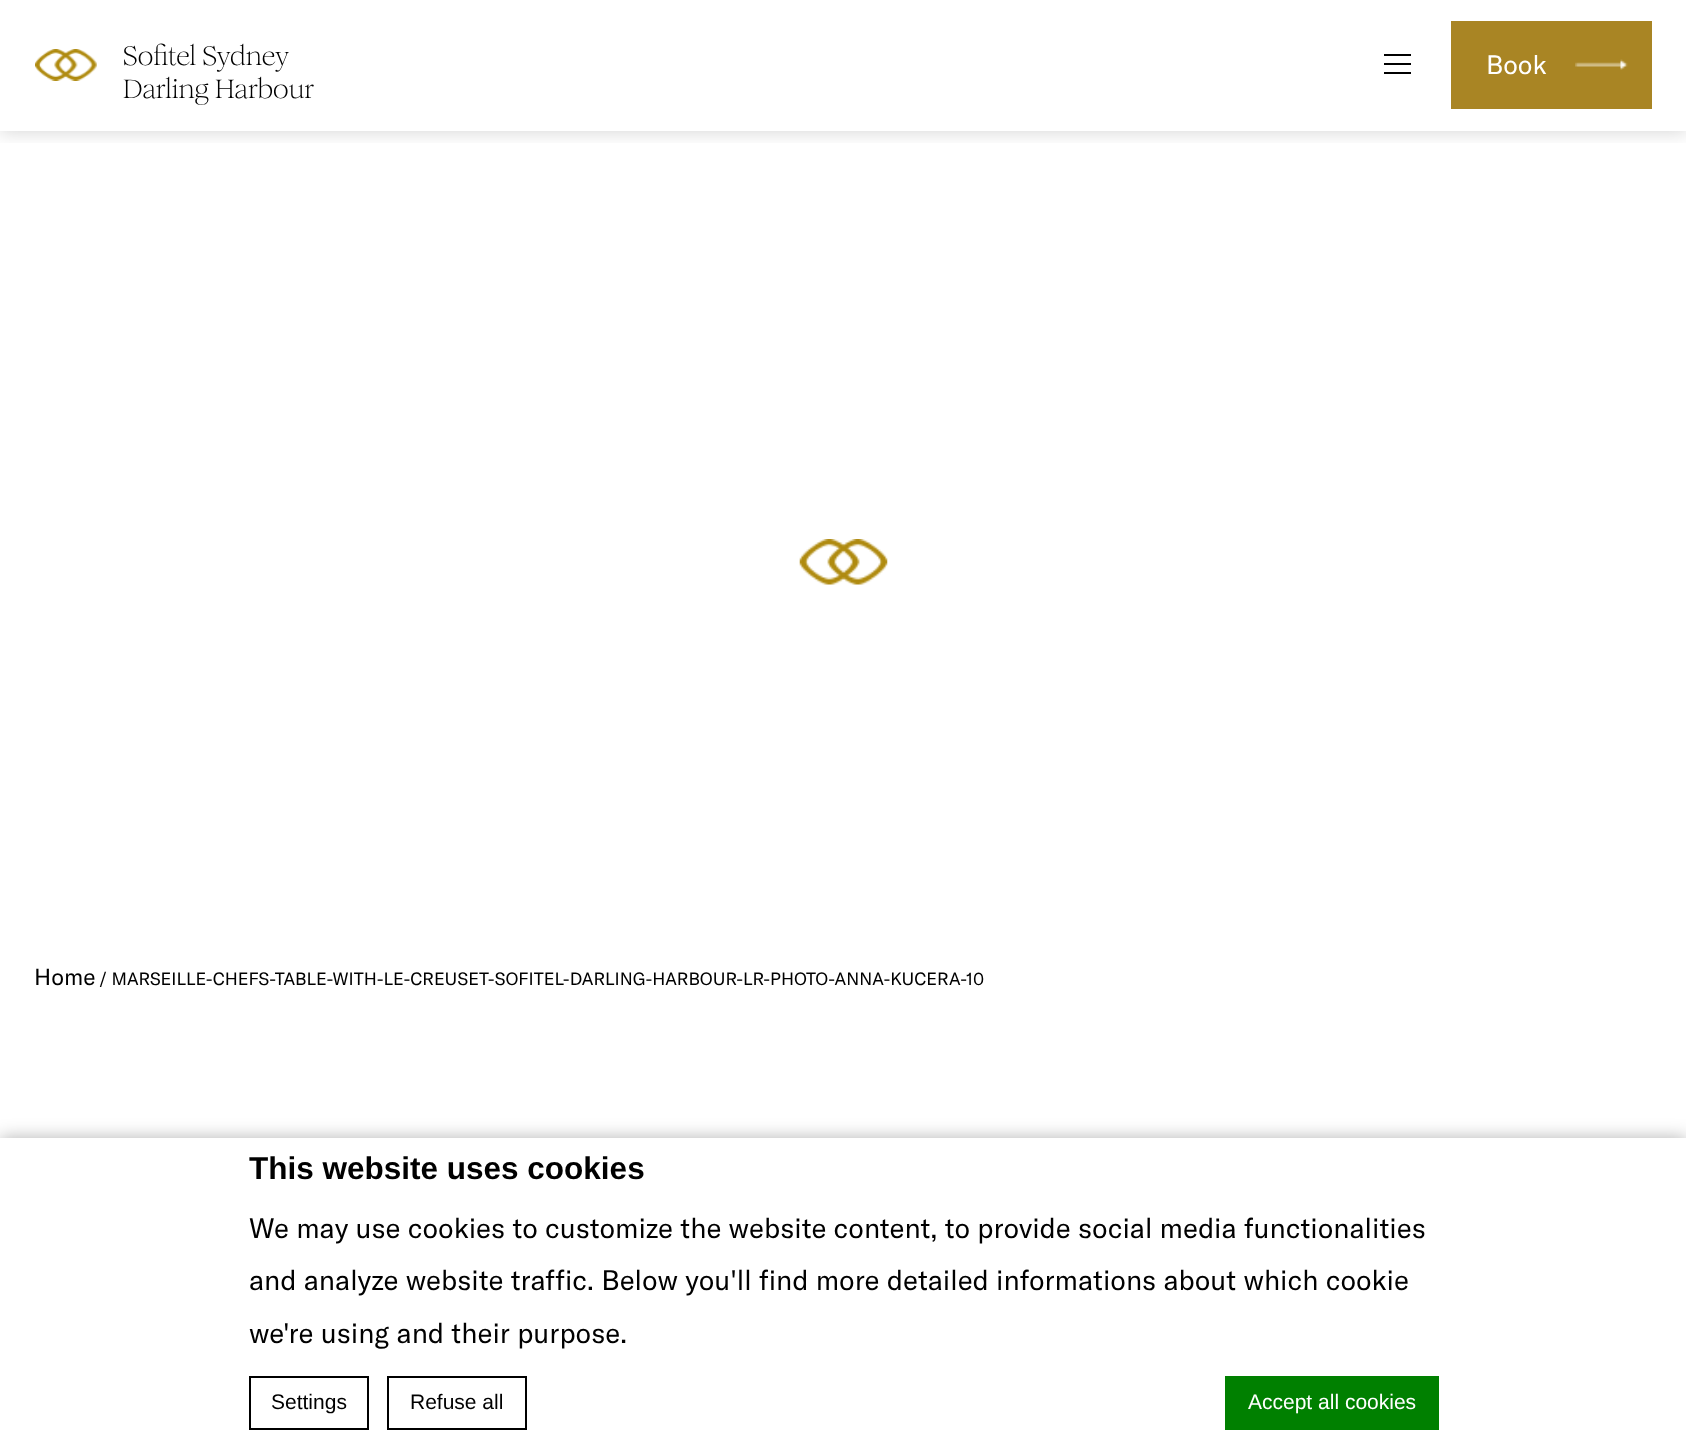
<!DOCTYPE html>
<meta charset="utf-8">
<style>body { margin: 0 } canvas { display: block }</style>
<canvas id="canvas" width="1686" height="1455"></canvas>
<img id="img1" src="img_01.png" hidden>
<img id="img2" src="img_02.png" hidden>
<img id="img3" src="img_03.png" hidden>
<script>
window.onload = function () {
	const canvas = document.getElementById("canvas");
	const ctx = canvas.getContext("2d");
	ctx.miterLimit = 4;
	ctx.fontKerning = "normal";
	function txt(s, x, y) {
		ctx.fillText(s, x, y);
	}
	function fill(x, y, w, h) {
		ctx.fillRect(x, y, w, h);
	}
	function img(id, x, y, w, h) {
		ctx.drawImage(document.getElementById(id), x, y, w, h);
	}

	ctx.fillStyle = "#FFFFFF";
	fill(0, 0, 1686, 1455);
	ctx.save();
	ctx.beginPath();
	ctx.rect(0, 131, 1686, 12);
	ctx.clip();
	ctx.fillStyle = "rgba(0, 0, 0, 0.15)";
	ctx.filter = "blur(9px)";
	ctx.beginPath();
	ctx.rect(0, 2, 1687, 131);
	ctx.fill();
	ctx.filter = "none";
	ctx.restore();
	img("img1", 35, 49, 62, 32);
	ctx.fillStyle = "#000000";
	fill(1384, 63, 27, 2);
	fill(1384, 54, 27, 2);
	fill(1384, 72, 27, 2);
	ctx.fillStyle = "#A98524";
	fill(1451, 21, 201, 88);
	img("img2", 1575, 59, 53, 11);
	img("img3", 799, 539, 89, 46);
	ctx.fillStyle = "rgba(0, 0, 0, 0.3)";
	ctx.filter = "blur(9px)";
	ctx.beginPath();
	ctx.rect(0, 1138, 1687, 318);
	ctx.fill();
	ctx.filter = "none";
	ctx.fillStyle = "#FFFFFF";
	fill(0, 1138, 1686, 317);
	ctx.strokeStyle = "#000000";
	ctx.lineWidth = 2;
	ctx.strokeRect(250, 1377, 118, 52);
	ctx.strokeRect(388, 1377, 138, 52);
	ctx.fillStyle = "#008000";
	fill(1225, 1376, 214, 54);
	ctx.font = "26.25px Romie";
	ctx.fillStyle = "#000000";
	txt("Sofitel Sydney", 123, 65);
	txt("Darling Harbour", 123, 98);
	ctx.font = "26.25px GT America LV";
	ctx.fillStyle = "#FFFFFF";
	txt("Book", 1486, 74);
	ctx.font = "23px GT America LV";
	ctx.fillStyle = "#000000";
	txt("Home", 34, 985);
	ctx.font = "17.5px GT America LV";
	txt("/ MARSEILLE-CHEFS-TABLE-WITH-LE-CREUSET-SOFITEL-DARLING-HARBOUR-LR-PHOTO-ANNA-KUCERA-10", 99, 985);
	ctx.font = "bold 31.5px Liberation Sans";
	txt("This website uses cookies", 249, 1179);
	ctx.font = "28px GT America LV";
	txt("We may use cookies to customize the website content, to provide social media functionalities", 249, 1238);
	txt("and analyze website traffic. Below you'll find more detailed informations about which cookie", 249, 1290);
	txt("we're using and their purpose.", 249, 1343);
	ctx.font = "21px Liberation Sans";
	txt("Settings", 271, 1409);
	txt("Refuse all", 410, 1409);
	ctx.fillStyle = "#FFFFFF";
	txt("Accept all cookies", 1248, 1409);
};
</script>
